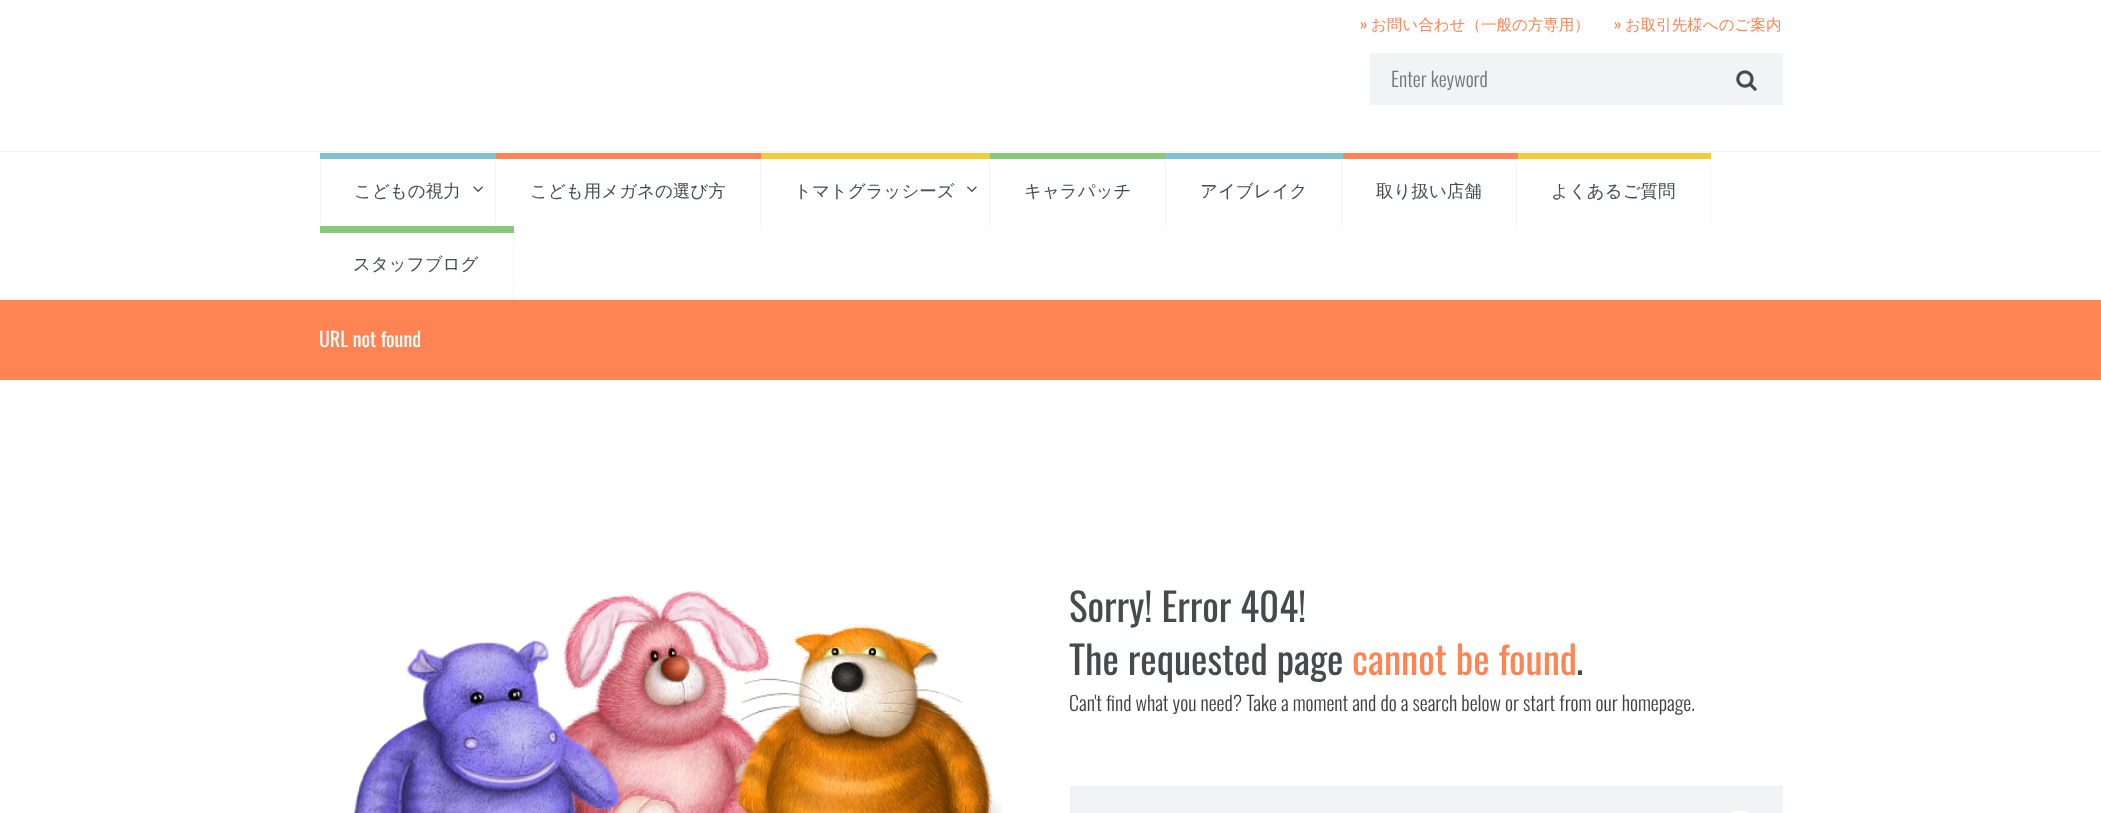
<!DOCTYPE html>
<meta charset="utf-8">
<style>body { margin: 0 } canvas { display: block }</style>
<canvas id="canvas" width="2101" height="813"></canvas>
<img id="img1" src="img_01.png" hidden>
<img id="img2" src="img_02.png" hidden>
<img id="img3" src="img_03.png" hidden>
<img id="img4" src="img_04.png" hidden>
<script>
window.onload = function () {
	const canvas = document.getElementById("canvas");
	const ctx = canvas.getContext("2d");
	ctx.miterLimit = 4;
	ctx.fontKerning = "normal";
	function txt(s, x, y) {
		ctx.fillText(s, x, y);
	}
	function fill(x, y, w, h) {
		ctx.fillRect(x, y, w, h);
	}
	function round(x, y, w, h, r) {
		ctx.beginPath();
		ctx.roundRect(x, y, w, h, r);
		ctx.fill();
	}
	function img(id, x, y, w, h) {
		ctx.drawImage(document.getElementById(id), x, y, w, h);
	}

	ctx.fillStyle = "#FFFFFF";
	fill(0, 0, 2101, 813);
	ctx.fillStyle = "#F4F4F4";
	fill(0, 151, 2101, 1);
	ctx.fillStyle = "#F2F3F4";
	fill(1370, 53, 413, 52);
	img("img1", 1736, 70, 21, 21);
	ctx.fillStyle = "#F4F4F4";
	fill(495, 153, 1, 73);
	fill(320, 153, 1, 73);
	ctx.fillStyle = "#80C3D2";
	fill(320, 153, 176, 6);
	img("img2", 473, 186, 10, 6);
	ctx.fillStyle = "#F4F4F4";
	fill(760, 153, 1, 73);
	ctx.fillStyle = "#FF8454";
	fill(496, 153, 265, 6);
	ctx.fillStyle = "#F4F4F4";
	fill(989, 153, 1, 73);
	ctx.fillStyle = "#F0CD3A";
	fill(761, 153, 229, 6);
	img("img3", 967, 186, 10, 6);
	ctx.fillStyle = "#F4F4F4";
	fill(1165, 153, 1, 73);
	ctx.fillStyle = "#88C87B";
	fill(990, 153, 176, 6);
	ctx.fillStyle = "#F4F4F4";
	fill(1341, 153, 1, 73);
	ctx.fillStyle = "#80C3D2";
	fill(1166, 153, 177, 6);
	ctx.fillStyle = "#F4F4F4";
	fill(1516, 153, 1, 73);
	ctx.fillStyle = "#FF8454";
	fill(1343, 153, 175, 6);
	ctx.fillStyle = "#F4F4F4";
	fill(1710, 153, 1, 73);
	ctx.fillStyle = "#F0CD3A";
	fill(1518, 153, 193, 6);
	ctx.fillStyle = "#F4F4F4";
	fill(513, 226, 1, 74);
	ctx.fillStyle = "#88C87B";
	fill(320, 226, 194, 7);
	ctx.fillStyle = "#FF8454";
	fill(0, 300, 2101, 80);
	img("img4", 354, 590, 648, 223);
	ctx.fillStyle = "#F2F3F4";
	fill(1070, 786, 713, 27);
	ctx.fillStyle = "#FFFFFF";
	round(1729, 811, 22, 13, 11);
	ctx.font = "15.5px Oswald";
	ctx.fillStyle = "#FF8454";
	txt("»", 1360, 30);
	ctx.font = "500 15.5px WenQuanYi Zen Hei";
	txt("お問い合わせ（一般の方専用）", 1371, 30);
	ctx.font = "15.5px Oswald";
	txt("»", 1614, 30);
	ctx.font = "500 15.5px WenQuanYi Zen Hei";
	txt("お取引先様へのご案内", 1625, 30);
	ctx.font = "300 20px Oswald";
	ctx.fillStyle = "#757575";
	txt("Enter keyword", 1391, 87);
	ctx.font = "500 17.5px WenQuanYi Zen Hei";
	ctx.fillStyle = "#454A4C";
	txt("こどもの視力", 354, 197);
	txt("こども用メガネの選び方", 530, 197);
	txt("トマトグラッシーズ", 794, 197);
	txt("キャラパッチ", 1024, 197);
	txt("アイブレイク", 1200, 197);
	txt("取り扱い店舗", 1376, 197);
	txt("よくあるご質問", 1551, 197);
	txt("スタッフブログ", 353, 270);
	ctx.font = "20px Oswald";
	ctx.fillStyle = "#FFFFFF";
	txt("URL not found", 319, 347);
	ctx.font = "39px Oswald";
	ctx.fillStyle = "#454A4C";
	txt("Sorry! Error 404!", 1069, 622);
	txt("The requested page", 1069, 675);
	ctx.fillStyle = "#FF8454";
	txt("cannot be found", 1352, 675);
	ctx.fillStyle = "#454A4C";
	txt(".", 1576, 675);
	ctx.font = "300 20px Oswald";
	ctx.fillStyle = "#3E3E3E";
	txt("Can't find what you need? Take a moment and do a search below or start from our homepage.", 1069, 711);
};
</script>
